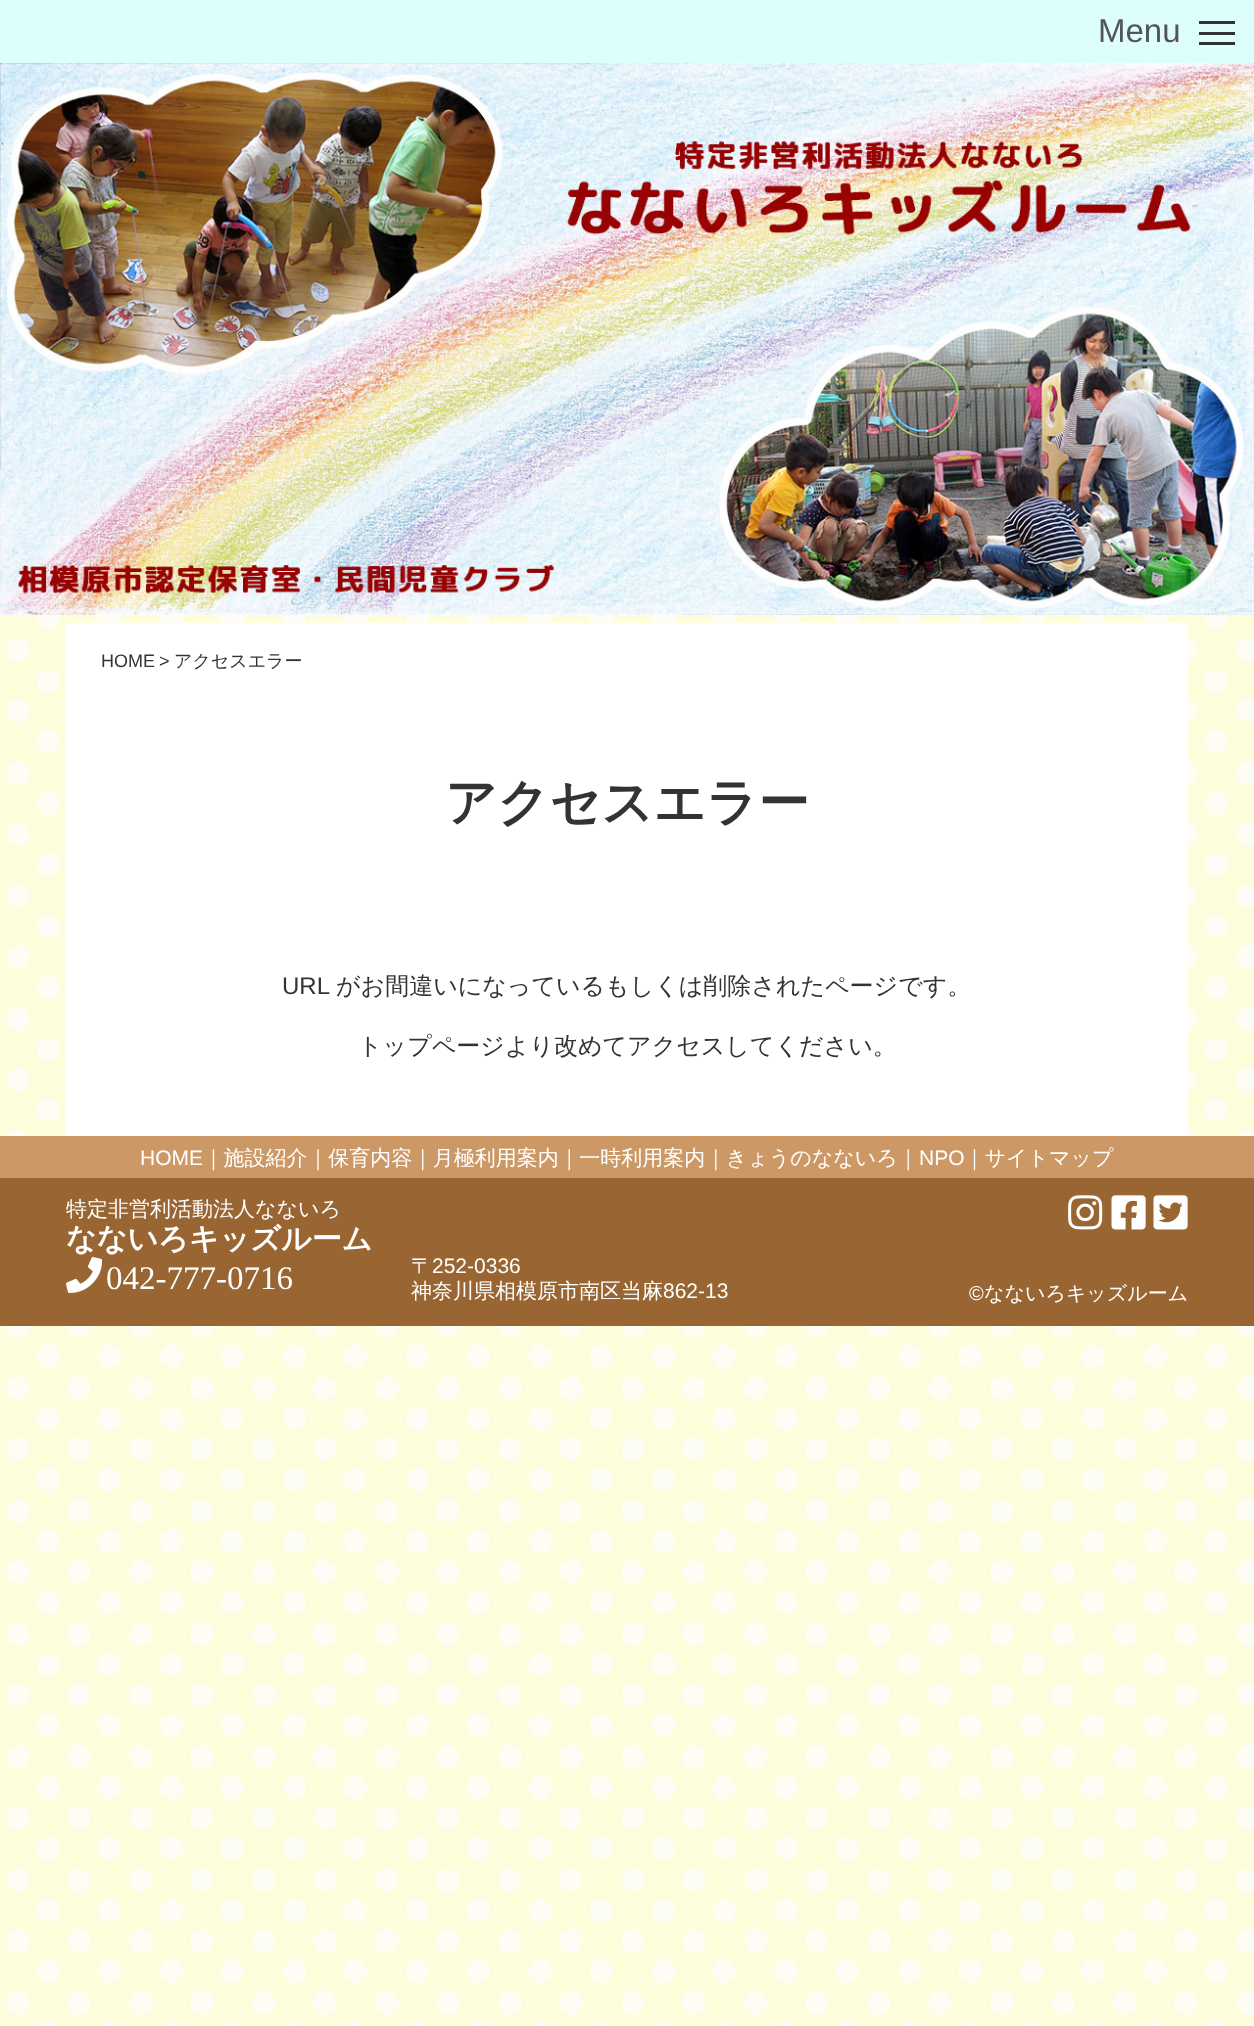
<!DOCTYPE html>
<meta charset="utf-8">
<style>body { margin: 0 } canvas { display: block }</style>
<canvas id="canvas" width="1254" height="2026"></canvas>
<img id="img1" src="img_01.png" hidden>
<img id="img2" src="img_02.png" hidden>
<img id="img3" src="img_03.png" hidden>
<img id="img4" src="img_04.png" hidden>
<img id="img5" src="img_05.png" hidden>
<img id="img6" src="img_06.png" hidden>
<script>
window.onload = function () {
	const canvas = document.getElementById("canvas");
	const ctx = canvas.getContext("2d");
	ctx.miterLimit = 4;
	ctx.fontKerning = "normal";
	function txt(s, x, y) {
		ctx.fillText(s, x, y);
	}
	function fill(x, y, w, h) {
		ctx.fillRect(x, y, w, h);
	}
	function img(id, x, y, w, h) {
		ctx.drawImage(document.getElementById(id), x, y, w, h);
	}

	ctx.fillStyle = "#FEFDDC";
	fill(0, 0, 1254, 2026);
	img("img1", 6, 615, 1248, 1411);
	ctx.fillStyle = "#DEFEFE";
	fill(0, 0, 1254, 63);
	ctx.fillStyle = "#333333";
	fill(1199, 32, 36, 3);
	fill(1199, 21, 36, 3);
	fill(1199, 42, 36, 3);
	img("img2", 0, 63, 1254, 552);
	ctx.fillStyle = "#FFFFFF";
	fill(66, 623, 1122, 513);
	ctx.fillStyle = "#996633";
	fill(0, 1178, 1254, 148);
	ctx.fillStyle = "#CC9966";
	fill(0, 1136, 1254, 42);
	img("img3", 66, 1257, 37, 36);
	img("img4", 1068, 1195, 35, 35);
	img("img5", 1111, 1195, 35, 35);
	img("img6", 1153, 1195, 35, 35);
	ctx.font = "33px Liberation Sans";
	ctx.fillStyle = "#555555";
	txt("Menu", 1098, 42);
	ctx.font = "18px Liberation Sans";
	ctx.fillStyle = "#333333";
	txt("HOME", 101, 667);
	txt(">", 159, 667);
	ctx.font = "500 18px WenQuanYi Zen Hei";
	txt("アクセスエラー", 174, 667);
	ctx.font = "bold 51px WenQuanYi Zen Hei";
	txt("アクセスエラー", 445, 820);
	ctx.font = "24px Liberation Sans";
	txt("URL", 282, 994);
	ctx.font = "500 24px WenQuanYi Zen Hei";
	txt("がお間違いになっているもしくは削除されたページです。", 336, 994);
	txt("トップページより改めてアクセスしてください。", 358, 1054);
	ctx.font = "21px Liberation Sans";
	ctx.fillStyle = "#FFFFFF";
	txt("HOME", 140, 1165);
	ctx.font = "500 21px WenQuanYi Zen Hei";
	txt("｜施設紹介｜保育内容｜月極利用案内｜一時利用案内｜きょうのなないろ｜", 203, 1165);
	ctx.font = "21px Liberation Sans";
	txt("NPO", 919, 1165);
	ctx.font = "500 21px WenQuanYi Zen Hei";
	txt("｜サイトマップ", 964, 1165);
	txt("特定非営利活動法人なないろ", 66, 1216);
	ctx.font = "bold 30px WenQuanYi Zen Hei";
	txt("なないろキッズルーム", 66, 1249);
	ctx.font = "33px Liberation Serif";
	txt("042-777-0716", 106, 1289);
	ctx.font = "500 21px WenQuanYi Zen Hei";
	txt("〒", 411, 1273);
	ctx.font = "21px Liberation Sans";
	txt("252-0336", 432, 1273);
	ctx.font = "500 21px WenQuanYi Zen Hei";
	txt("神奈川県相模原市南区当麻", 411, 1298);
	ctx.font = "21px Liberation Sans";
	txt("862-13", 663, 1298);
	ctx.font = "20px Liberation Sans";
	txt("©", 969, 1300);
	ctx.font = "500 20px WenQuanYi Zen Hei";
	txt("なないろキッズルーム", 984, 1300);
};
</script>
